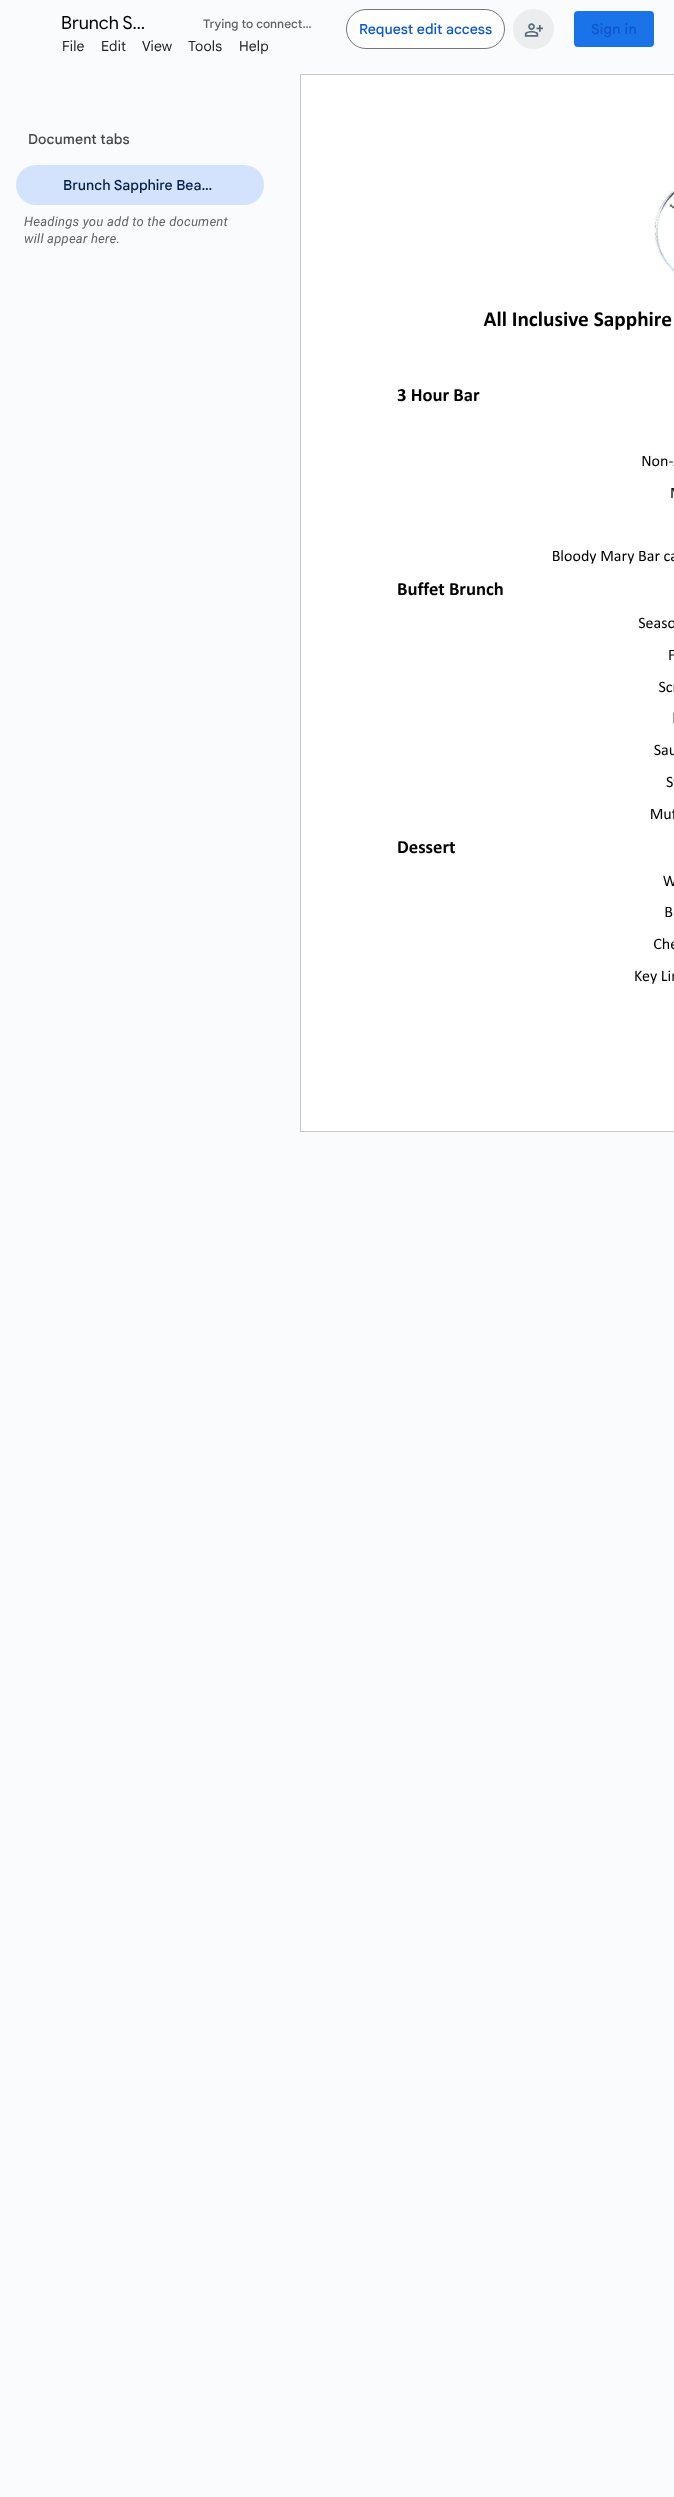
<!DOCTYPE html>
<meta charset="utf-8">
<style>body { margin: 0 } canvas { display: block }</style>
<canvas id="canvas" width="674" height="2497"></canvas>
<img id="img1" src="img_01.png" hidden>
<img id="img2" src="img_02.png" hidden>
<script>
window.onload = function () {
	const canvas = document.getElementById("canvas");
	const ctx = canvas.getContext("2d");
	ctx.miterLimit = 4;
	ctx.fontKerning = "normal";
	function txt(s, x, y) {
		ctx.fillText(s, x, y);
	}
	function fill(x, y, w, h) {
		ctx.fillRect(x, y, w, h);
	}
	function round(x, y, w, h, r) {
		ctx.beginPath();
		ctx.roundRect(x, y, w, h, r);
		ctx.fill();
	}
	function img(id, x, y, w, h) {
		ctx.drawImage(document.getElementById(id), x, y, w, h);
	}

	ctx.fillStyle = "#F9FBFD";
	fill(0, 0, 674, 2497);
	ctx.fillStyle = "#FFFFFF";
	ctx.beginPath();
	ctx.roundRect(346.5, 9.5, 158, 39, 19.5);
	ctx.fill();
	ctx.strokeStyle = "#747775";
	ctx.stroke();
	ctx.fillStyle = "#ECEDEE";
	round(513, 9, 41, 40, 20);
	img("img1", 524, 23, 19, 14);
	ctx.fillStyle = "#1A73E8";
	round(574, 11, 80, 36, 4);
	ctx.fillStyle = "#D3E3FD";
	round(16, 165, 248, 40, 20);
	ctx.strokeStyle = "#C7C7C7";
	ctx.strokeRect(300.5, 74.5, 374, 1057);
	img("img2", 301, 75, 373, 1056);
	ctx.font = "18px 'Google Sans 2'";
	ctx.fillStyle = "#000000";
	txt("Brunch S…", 61, 29);
	ctx.font = "500 12px Google Sans";
	ctx.fillStyle = "#5F6368";
	txt("Trying to connect…", 203, 28);
	ctx.font = "500 14px Google Sans";
	ctx.fillStyle = "#0B57D0";
	txt("Request edit access", 359, 34);
	ctx.letterSpacing = "0.25px";
	ctx.fillStyle = "#1155CC";
	txt("Sign in", 591, 34);
	ctx.letterSpacing = "0.2px";
	ctx.font = "14px Google Sans";
	ctx.fillStyle = "#202124";
	txt("File", 62, 51);
	txt("Edit", 101, 51);
	txt("View", 142, 51);
	txt("Tools", 188, 51);
	txt("Help", 239, 51);
	ctx.letterSpacing = "0.1px";
	ctx.font = "500 14px Google Sans";
	ctx.fillStyle = "#444746";
	txt("Document tabs", 28, 144);
	ctx.letterSpacing = "0px";
	ctx.fillStyle = "#041E49";
	txt("Brunch Sapphire Bea…", 63, 190);
	ctx.letterSpacing = "0.2px";
	ctx.font = "italic 13px Roboto";
	ctx.fillStyle = "#5F6368";
	txt("Headings you add to the document", 24, 226);
	txt("will appear here.", 24, 243);
};
</script>
